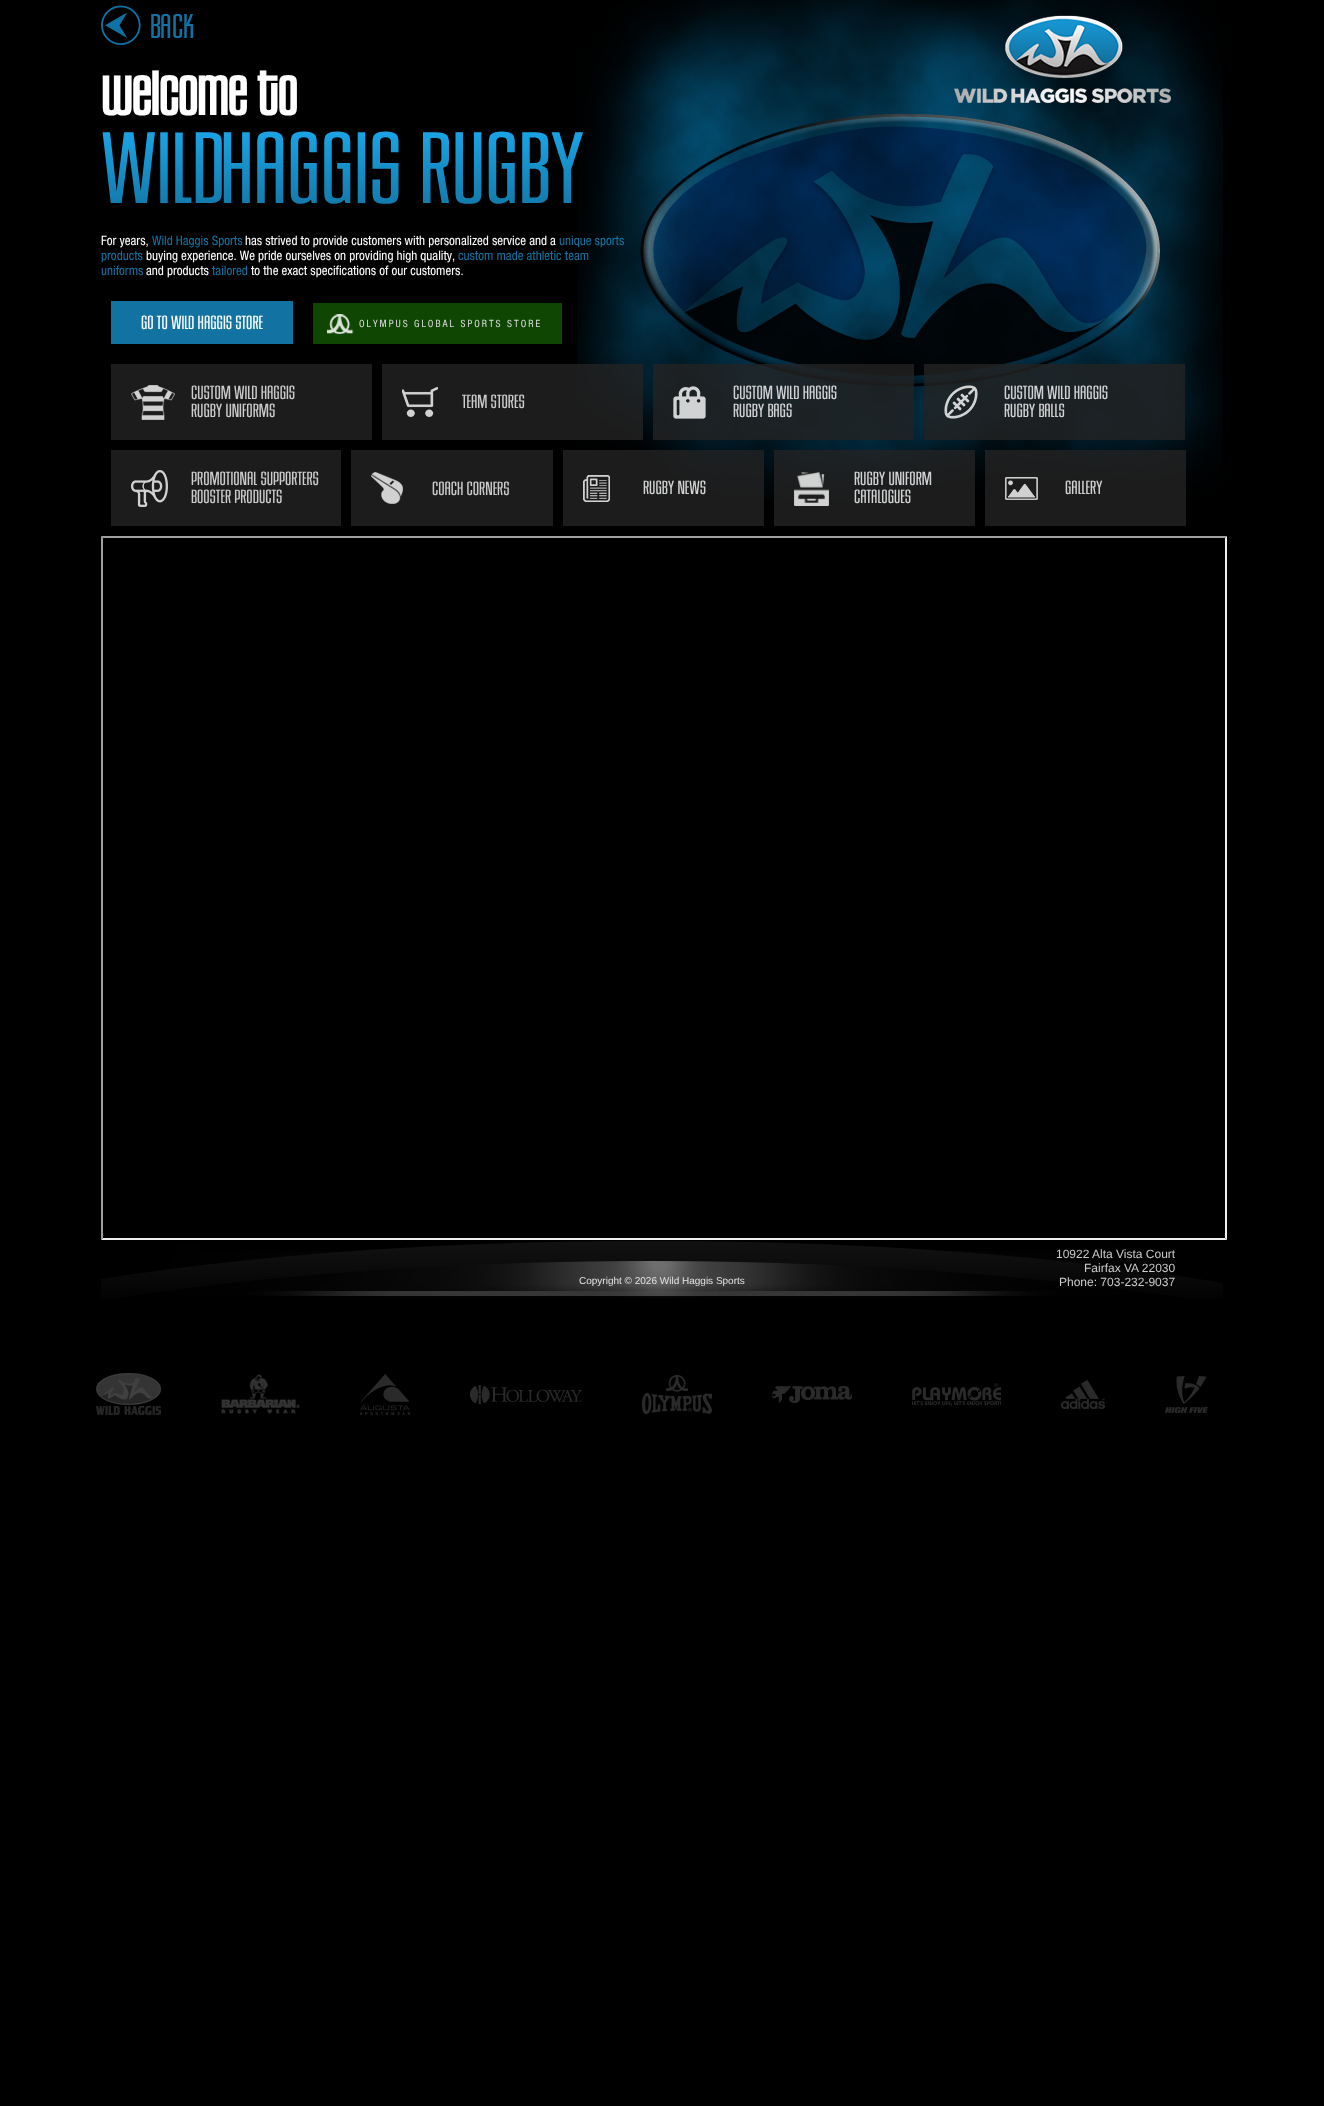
<!DOCTYPE html>
<meta charset="utf-8">
<style>body { margin: 0 } canvas { display: block }</style>
<canvas id="canvas" width="1324" height="2106"></canvas>
<img id="img1" src="img_01.png" hidden>
<img id="img2" src="img_03.png" hidden>
<img id="img3" src="img_02.png" hidden>
<img id="img4" src="img_04.png" hidden>
<img id="img5" src="img_05.png" hidden>
<img id="img6" src="img_06.png" hidden>
<img id="img7" src="img_07.png" hidden>
<img id="img8" src="img_08.png" hidden>
<img id="img9" src="img_09.png" hidden>
<img id="img10" src="img_10.png" hidden>
<img id="img11" src="img_11.png" hidden>
<img id="img12" src="img_12.png" hidden>
<img id="img13" src="img_13.png" hidden>
<img id="img14" src="img_14.png" hidden>
<img id="img15" src="img_15.png" hidden>
<img id="img16" src="img_16.png" hidden>
<img id="img17" src="img_17.png" hidden>
<img id="img18" src="img_18.png" hidden>
<img id="img19" src="img_19.png" hidden>
<img id="img20" src="img_20.png" hidden>
<img id="img21" src="img_21.png" hidden>
<img id="img22" src="img_22.png" hidden>
<img id="img23" src="img_23.png" hidden>
<script>
window.onload = function () {
	const canvas = document.getElementById("canvas");
	const ctx = canvas.getContext("2d");
	ctx.miterLimit = 4;
	ctx.fontKerning = "normal";
	function txt(s, x, y) {
		ctx.fillText(s, x, y);
	}
	function fill(x, y, w, h) {
		ctx.fillRect(x, y, w, h);
	}
	function img(id, x, y, w, h) {
		ctx.drawImage(document.getElementById(id), x, y, w, h);
	}
	let gradient;

	ctx.fillStyle = "#000000";
	fill(0, 0, 1324, 2106);
	img("img1", 101, 5, 93, 40);
	img("img2", 577, 0, 646, 500);
	img("img3", 954, 15, 217, 88);
	ctx.fillStyle = "#1273A2";
	fill(111, 301, 182, 43);
	ctx.fillStyle = "#0F4602";
	fill(313, 303, 249, 41);
	img("img4", 327, 314, 27, 20);
	ctx.fillStyle = "#1C1C1C";
	fill(111, 364, 261, 76);
	img("img5", 131, 385, 44, 35);
	ctx.fillStyle = "rgba(35, 35, 35, 0.8)";
	fill(382, 364, 261, 76);
	img("img6", 402, 387, 36, 30);
	fill(653, 364, 261, 76);
	img("img7", 673, 386, 33, 33);
	fill(924, 364, 261, 76);
	img("img8", 944, 385, 34, 34);
	ctx.fillStyle = "#1C1C1C";
	fill(111, 450, 230, 76);
	img("img9", 131, 470, 37, 37);
	fill(351, 450, 202, 76);
	img("img10", 371, 472, 32, 32);
	ctx.fillStyle = "rgba(35, 35, 35, 0.8)";
	fill(563, 450, 201, 76);
	img("img11", 583, 475, 27, 27);
	fill(774, 450, 201, 76);
	img("img12", 794, 472, 35, 34);
	fill(985, 450, 201, 76);
	img("img13", 1005, 477, 33, 23);
	ctx.fillStyle = "#9F9F9F";
	ctx.beginPath();
	ctx.moveTo(101, 536);
	ctx.lineTo(1227, 536);
	ctx.lineTo(1225, 538);
	ctx.lineTo(103, 538);
	ctx.closePath();
	ctx.fill();
	ctx.fillStyle = "#EEEEEE";
	ctx.beginPath();
	ctx.moveTo(1227, 536);
	ctx.lineTo(1227, 1240);
	ctx.lineTo(1225, 1238);
	ctx.lineTo(1225, 538);
	ctx.closePath();
	ctx.fill();
	ctx.beginPath();
	ctx.moveTo(1227, 1240);
	ctx.lineTo(101, 1240);
	ctx.lineTo(103, 1238);
	ctx.lineTo(1225, 1238);
	ctx.closePath();
	ctx.fill();
	ctx.fillStyle = "#9F9F9F";
	ctx.beginPath();
	ctx.moveTo(101, 1240);
	ctx.lineTo(101, 536);
	ctx.lineTo(103, 538);
	ctx.lineTo(103, 1238);
	ctx.closePath();
	ctx.fill();
	img("img14", 101, 1241, 1122, 57);
	img("img15", 96, 1373, 65, 42);
	img("img16", 221, 1374, 79, 40);
	img("img17", 360, 1374, 50, 41);
	img("img18", 470, 1385, 112, 19);
	img("img19", 642, 1375, 70, 39);
	img("img20", 772, 1386, 80, 17);
	img("img21", 912, 1383, 89, 23);
	img("img22", 1061, 1380, 44, 29);
	img("img23", 1165, 1376, 43, 37);
	ctx.font = "bold 64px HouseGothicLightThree";
	ctx.fillStyle = "#FFFFFF";
	txt("welcome to", 101, 115);
	ctx.font = "300 106px HouseGothicLightThree";
	gradient = ctx.createLinearGradient(366, 120, 366, 220);
	gradient.addColorStop(0, "#1BAAEE");
	gradient.addColorStop(1, "#1272A0");
	ctx.fillStyle = gradient;
	txt("WILD", 101, 203);
	txt("HAGGIS RUGBY", 220, 203);
	ctx.font = "13px 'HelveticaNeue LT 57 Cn'";
	ctx.fillStyle = "#FFFFFF";
	txt("For years,", 101, 245);
	ctx.fillStyle = "#1273A2";
	txt("Wild Haggis Sports", 152, 245);
	ctx.fillStyle = "#FFFFFF";
	txt("has strived to provide customers with personalized service and a", 245, 245);
	ctx.fillStyle = "#1273A2";
	txt("unique sports", 559, 245);
	txt("products", 101, 260);
	ctx.fillStyle = "#FFFFFF";
	txt("buying experience. We pride ourselves on providing high quality,", 146, 260);
	ctx.fillStyle = "#1273A2";
	txt("custom made athletic team", 458, 260);
	txt("uniforms", 101, 275);
	ctx.fillStyle = "#FFFFFF";
	txt("and products", 146, 275);
	ctx.fillStyle = "#1273A2";
	txt("tailored", 212, 275);
	ctx.fillStyle = "#FFFFFF";
	txt("to the exact specifications of our customers.", 251, 275);
	ctx.font = "300 20px HouseGothicLightThree";
	txt("GO TO WILD HAGGIS STORE", 141, 329);
	ctx.letterSpacing = "2px";
	ctx.font = "10px 'HelveticaNeue LT 57 Cn'";
	ctx.fillStyle = "#D9D9D9";
	txt("OLYMPUS GLOBAL SPORTS STORE", 359, 327);
	ctx.letterSpacing = "0px";
	ctx.font = "300 20px HouseGothicLightThree";
	ctx.fillStyle = "#CCCCCC";
	txt("CUSTOM WILD HAGGIS", 191, 399);
	txt("RUGBY UNIFORMS", 191, 417);
	txt("TEAM STORES", 462, 408);
	ctx.fillStyle = "#D2D3D4";
	txt("CUSTOM WILD HAGGIS", 733, 399);
	txt("RUGBY BAGS", 733, 417);
	txt("CUSTOM WILD HAGGIS", 1004, 399);
	txt("RUGBY BALLS", 1004, 417);
	ctx.fillStyle = "#CCCCCC";
	txt("PROMOTIONAL SUPPORTERS", 191, 485);
	txt("BOOSTER PRODUCTS", 191, 503);
	txt("COACH CORNERS", 432, 495);
	ctx.fillStyle = "#D2D3D4";
	txt("RUGBY NEWS", 643, 494);
	txt("RUGBY UNIFORM", 854, 485);
	txt("CATALOGUES", 854, 503);
	txt("GALLERY", 1065, 494);
	ctx.font = "10px Liberation Sans";
	ctx.fillStyle = "#E3E3E3";
	txt("Copyright © 2026 Wild Haggis Sports", 579, 1284);
	ctx.font = "12px Liberation Sans";
	ctx.fillStyle = "#CCCCCC";
	txt("10922 Alta Vista Court", 1056, 1258);
	txt("Fairfax VA 22030", 1084, 1272);
	txt("Phone: 703-232-9037", 1059, 1286);
};
</script>
